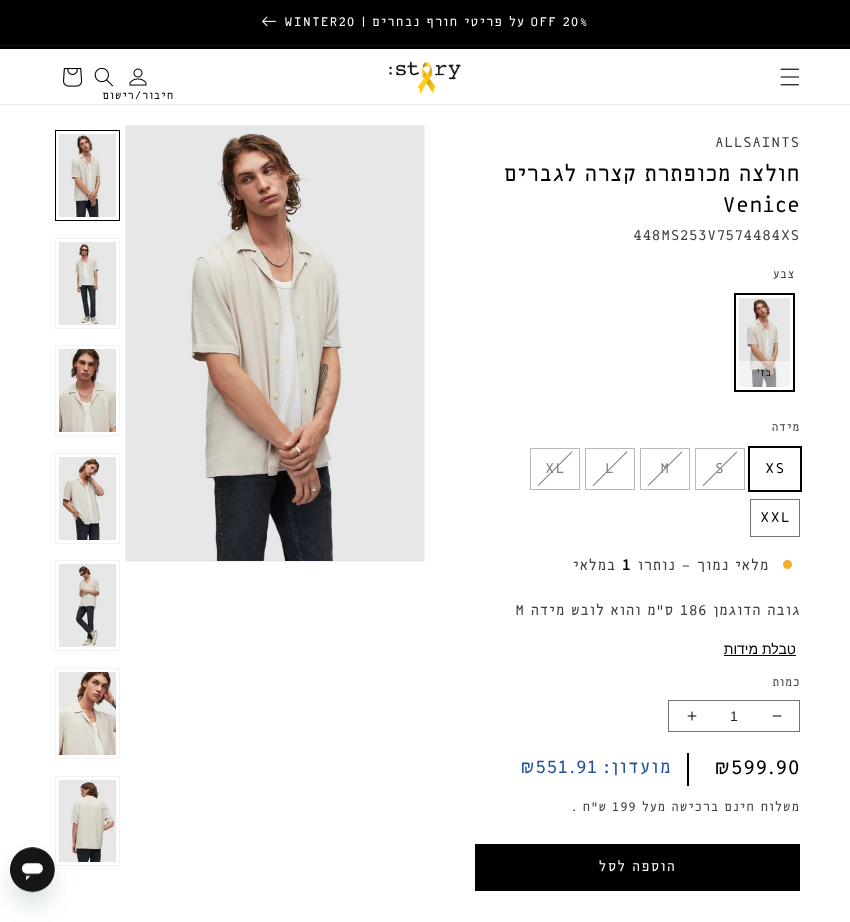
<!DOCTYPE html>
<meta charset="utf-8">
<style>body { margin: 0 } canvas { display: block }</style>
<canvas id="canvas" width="850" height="922"></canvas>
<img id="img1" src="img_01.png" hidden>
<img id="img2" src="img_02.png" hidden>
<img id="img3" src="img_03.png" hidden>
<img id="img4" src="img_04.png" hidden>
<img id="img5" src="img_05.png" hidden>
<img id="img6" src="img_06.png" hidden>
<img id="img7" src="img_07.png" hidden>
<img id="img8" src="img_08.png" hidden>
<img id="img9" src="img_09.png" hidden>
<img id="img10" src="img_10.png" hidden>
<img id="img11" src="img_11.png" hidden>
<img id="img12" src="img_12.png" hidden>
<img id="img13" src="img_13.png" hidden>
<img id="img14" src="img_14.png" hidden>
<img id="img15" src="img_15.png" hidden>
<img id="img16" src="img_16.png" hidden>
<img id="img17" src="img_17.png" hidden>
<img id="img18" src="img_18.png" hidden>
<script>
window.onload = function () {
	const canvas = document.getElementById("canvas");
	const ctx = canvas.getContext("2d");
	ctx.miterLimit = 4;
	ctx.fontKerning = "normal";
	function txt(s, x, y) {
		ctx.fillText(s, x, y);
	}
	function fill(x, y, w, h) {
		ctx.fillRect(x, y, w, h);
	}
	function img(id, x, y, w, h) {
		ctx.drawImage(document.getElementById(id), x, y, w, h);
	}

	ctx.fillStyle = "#FFFFFF";
	fill(0, 0, 850, 922);
	ctx.fillStyle = "#000000";
	fill(0, 0, 850, 49);
	ctx.fillStyle = "#141414";
	fill(0, 45, 850, 1);
	img("img1", 262, 16, 14, 11);
	ctx.fillStyle = "#EBEBEB";
	fill(0, 104, 850, 1);
	img("img2", 780, 68, 20, 18);
	img("img3", 389, 61, 72, 33);
	img("img4", 94, 67, 19, 20);
	img("img5", 63, 68, 20, 19);
	img("img6", 129, 68, 18, 18);
	ctx.strokeStyle = "#000000";
	ctx.lineWidth = 2;
	ctx.strokeRect(735, 294, 59, 97);
	img("img7", 739, 298, 51, 89);
	ctx.fillStyle = "rgba(255, 255, 255, 0.5)";
	fill(739, 361, 51, 26);
	ctx.strokeRect(749, 447, 52, 44);
	ctx.strokeStyle = "#B9B9B9";
	ctx.lineWidth = 1;
	ctx.strokeRect(695.5, 448.5, 49, 41);
	ctx.fillStyle = "#808080";
	ctx.beginPath();
	ctx.moveTo(737.5, 452);
	ctx.lineTo(703.5, 486);
	ctx.lineTo(702.5, 485.5);
	ctx.lineTo(736.5, 451.5);
	ctx.closePath();
	ctx.fill();
	ctx.strokeRect(640.5, 448.5, 49, 41);
	ctx.beginPath();
	ctx.moveTo(682.5, 452);
	ctx.lineTo(648.5, 486);
	ctx.lineTo(647.5, 485.5);
	ctx.lineTo(681.5, 451.5);
	ctx.closePath();
	ctx.fill();
	ctx.strokeRect(585.5, 448.5, 49, 41);
	ctx.beginPath();
	ctx.moveTo(627.5, 452);
	ctx.lineTo(593.5, 486);
	ctx.lineTo(592.5, 485.5);
	ctx.lineTo(626.5, 451.5);
	ctx.closePath();
	ctx.fill();
	ctx.strokeRect(530.5, 448.5, 49, 41);
	ctx.beginPath();
	ctx.moveTo(572.5, 452);
	ctx.lineTo(538.5, 486);
	ctx.lineTo(537.5, 485.5);
	ctx.lineTo(571.5, 451.5);
	ctx.closePath();
	ctx.fill();
	ctx.strokeStyle = "#737373";
	ctx.strokeRect(750.5, 499.5, 49, 37);
	ctx.fillStyle = "#F4AF29";
	ctx.beginPath();
	ctx.arc(787.5, 564.5, 4.5, 0, Math.PI * 2);
	ctx.fill();
	ctx.fillStyle = "#000000";
	fill(724, 655, 72, 1);
	img("img8", 772, 715, 10, 2);
	img("img9", 687, 711, 10, 10);
	ctx.strokeRect(668.5, 700.5, 131, 31);
	fill(687, 753, 2, 33);
	fill(475, 844, 325, 47);
	ctx.strokeStyle = "#F2F2F2";
	ctx.strokeRect(125.5, 125.5, 299, 436);
	img("img10", 126, 126, 298, 435);
	ctx.strokeStyle = "#000000";
	ctx.strokeRect(55.5, 130.5, 64, 90);
	img("img11", 59, 134, 57, 83);
	ctx.strokeStyle = "#F2F2F2";
	ctx.strokeRect(55.5, 238.5, 64, 90);
	img("img12", 59, 242, 57, 83);
	ctx.strokeRect(55.5, 345.5, 64, 90);
	img("img13", 59, 349, 57, 83);
	ctx.strokeRect(55.5, 453.5, 64, 90);
	img("img14", 59, 457, 57, 83);
	ctx.strokeRect(55.5, 560.5, 64, 90);
	img("img15", 59, 564, 57, 83);
	ctx.strokeRect(55.5, 668.5, 64, 90);
	img("img16", 59, 672, 57, 83);
	ctx.strokeRect(55.5, 776.5, 64, 89);
	img("img17", 59, 780, 57, 82);
	ctx.fillStyle = "rgba(23, 73, 77, 0.15)";
	ctx.filter = "blur(10.5px)";
	ctx.beginPath();
	ctx.roundRect(10, 861, 45, 45, 22.5);
	ctx.fill();
	ctx.filter = "none";
	img("img18", 10, 847, 45, 46);
	ctx.letterSpacing = "1px";
	ctx.font = "14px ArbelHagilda";
	ctx.fillStyle = "#FFFFFF";
	txt("OFF 20%", 530, 26);
	ctx.direction = "rtl";
	txt("על פריטי חורף נבחרים |", 525, 26);
	ctx.direction = "ltr";
	txt("WINTER20", 284, 26);
	ctx.letterSpacing = "0.6px";
	ctx.direction = "rtl";
	ctx.font = "12px ArbelHagilda";
	ctx.fillStyle = "#000000";
	txt("חיבור/רישום", 174, 99);
	ctx.letterSpacing = "0.5px";
	ctx.direction = "ltr";
	ctx.font = "16px ArbelHagilda";
	ctx.fillStyle = "#404040";
	txt("ALLSAINTS", 715, 147);
	ctx.letterSpacing = "0px";
	ctx.direction = "rtl";
	ctx.font = "24px ArbelHagilda";
	ctx.fillStyle = "#000000";
	txt("חולצה מכופתרת קצרה לגברים", 800, 181);
	ctx.direction = "ltr";
	txt("Venice", 722, 212);
	ctx.letterSpacing = "0.5px";
	ctx.font = "16px ArbelHagilda";
	ctx.fillStyle = "#404040";
	txt("448MS253V7574484XS", 633, 240);
	ctx.direction = "rtl";
	ctx.font = "13px ArbelHagilda";
	txt("צבע", 795, 278);
	ctx.font = "11px ArbelHagilda";
	ctx.fillStyle = "#000000";
	txt("בז'", 772, 376);
	ctx.font = "13px ArbelHagilda";
	ctx.fillStyle = "#404040";
	txt("מידה", 800, 431);
	ctx.letterSpacing = "1px";
	ctx.direction = "ltr";
	ctx.font = "16px ArbelHagilda";
	ctx.fillStyle = "#000000";
	txt("XS", 765, 473);
	ctx.fillStyle = "#808080";
	txt("S", 715, 473);
	txt("M", 660, 473);
	txt("L", 605, 473);
	txt("XL", 545, 473);
	ctx.fillStyle = "#000000";
	txt("XXL", 760, 522);
	ctx.letterSpacing = "0.5px";
	ctx.direction = "rtl";
	ctx.fillStyle = "#404040";
	txt("מלאי נמוך - נותרו", 769, 570);
	ctx.direction = "ltr";
	ctx.font = "bold 17px ArbelHagilda";
	ctx.fillStyle = "#000000";
	txt("1", 622, 570);
	ctx.direction = "rtl";
	ctx.font = "16px ArbelHagilda";
	ctx.fillStyle = "#404040";
	txt("במלאי", 616, 570);
	txt("גובה הדוגמן", 800, 615);
	ctx.direction = "ltr";
	txt("186", 680, 615);
	ctx.direction = "rtl";
	txt("ס\"מ והוא לובש מידה", 674, 615);
	ctx.direction = "ltr";
	txt("M", 515, 615);
	ctx.letterSpacing = "0px";
	ctx.direction = "rtl";
	ctx.font = "14px Liberation Sans";
	ctx.fillStyle = "#000000";
	txt("טבלת מידות", 796, 654);
	ctx.letterSpacing = "0.5px";
	ctx.font = "13px ArbelHagilda";
	ctx.fillStyle = "#404040";
	txt("כמות", 800, 686);
	ctx.letterSpacing = "0px";
	ctx.direction = "ltr";
	ctx.font = "14px Liberation Sans";
	ctx.fillStyle = "#262626";
	txt("1", 730, 721);
	ctx.letterSpacing = "0.5px";
	ctx.font = "22px ArbelHagilda";
	ctx.fillStyle = "#000000";
	txt("₪599.90", 714, 774);
	ctx.letterSpacing = "1.25px";
	ctx.direction = "rtl";
	ctx.font = "20px ArbelHagilda";
	ctx.fillStyle = "#22519F";
	txt("מועדון:", 672, 773);
	ctx.letterSpacing = "0.5px";
	ctx.direction = "ltr";
	txt("₪551.91", 520, 773);
	ctx.letterSpacing = "0.7px";
	ctx.direction = "rtl";
	ctx.font = "14px ArbelHagilda";
	ctx.fillStyle = "#404040";
	txt("משלוח חינם ברכישה מעל", 800, 811);
	ctx.direction = "ltr";
	txt("199", 612, 811);
	ctx.direction = "rtl";
	txt("ש\"ח .", 607, 811);
	ctx.letterSpacing = "1px";
	ctx.font = "15px ArbelHagilda";
	ctx.fillStyle = "#FFFFFF";
	txt("הוספה לסל", 676, 871);
};
</script>
